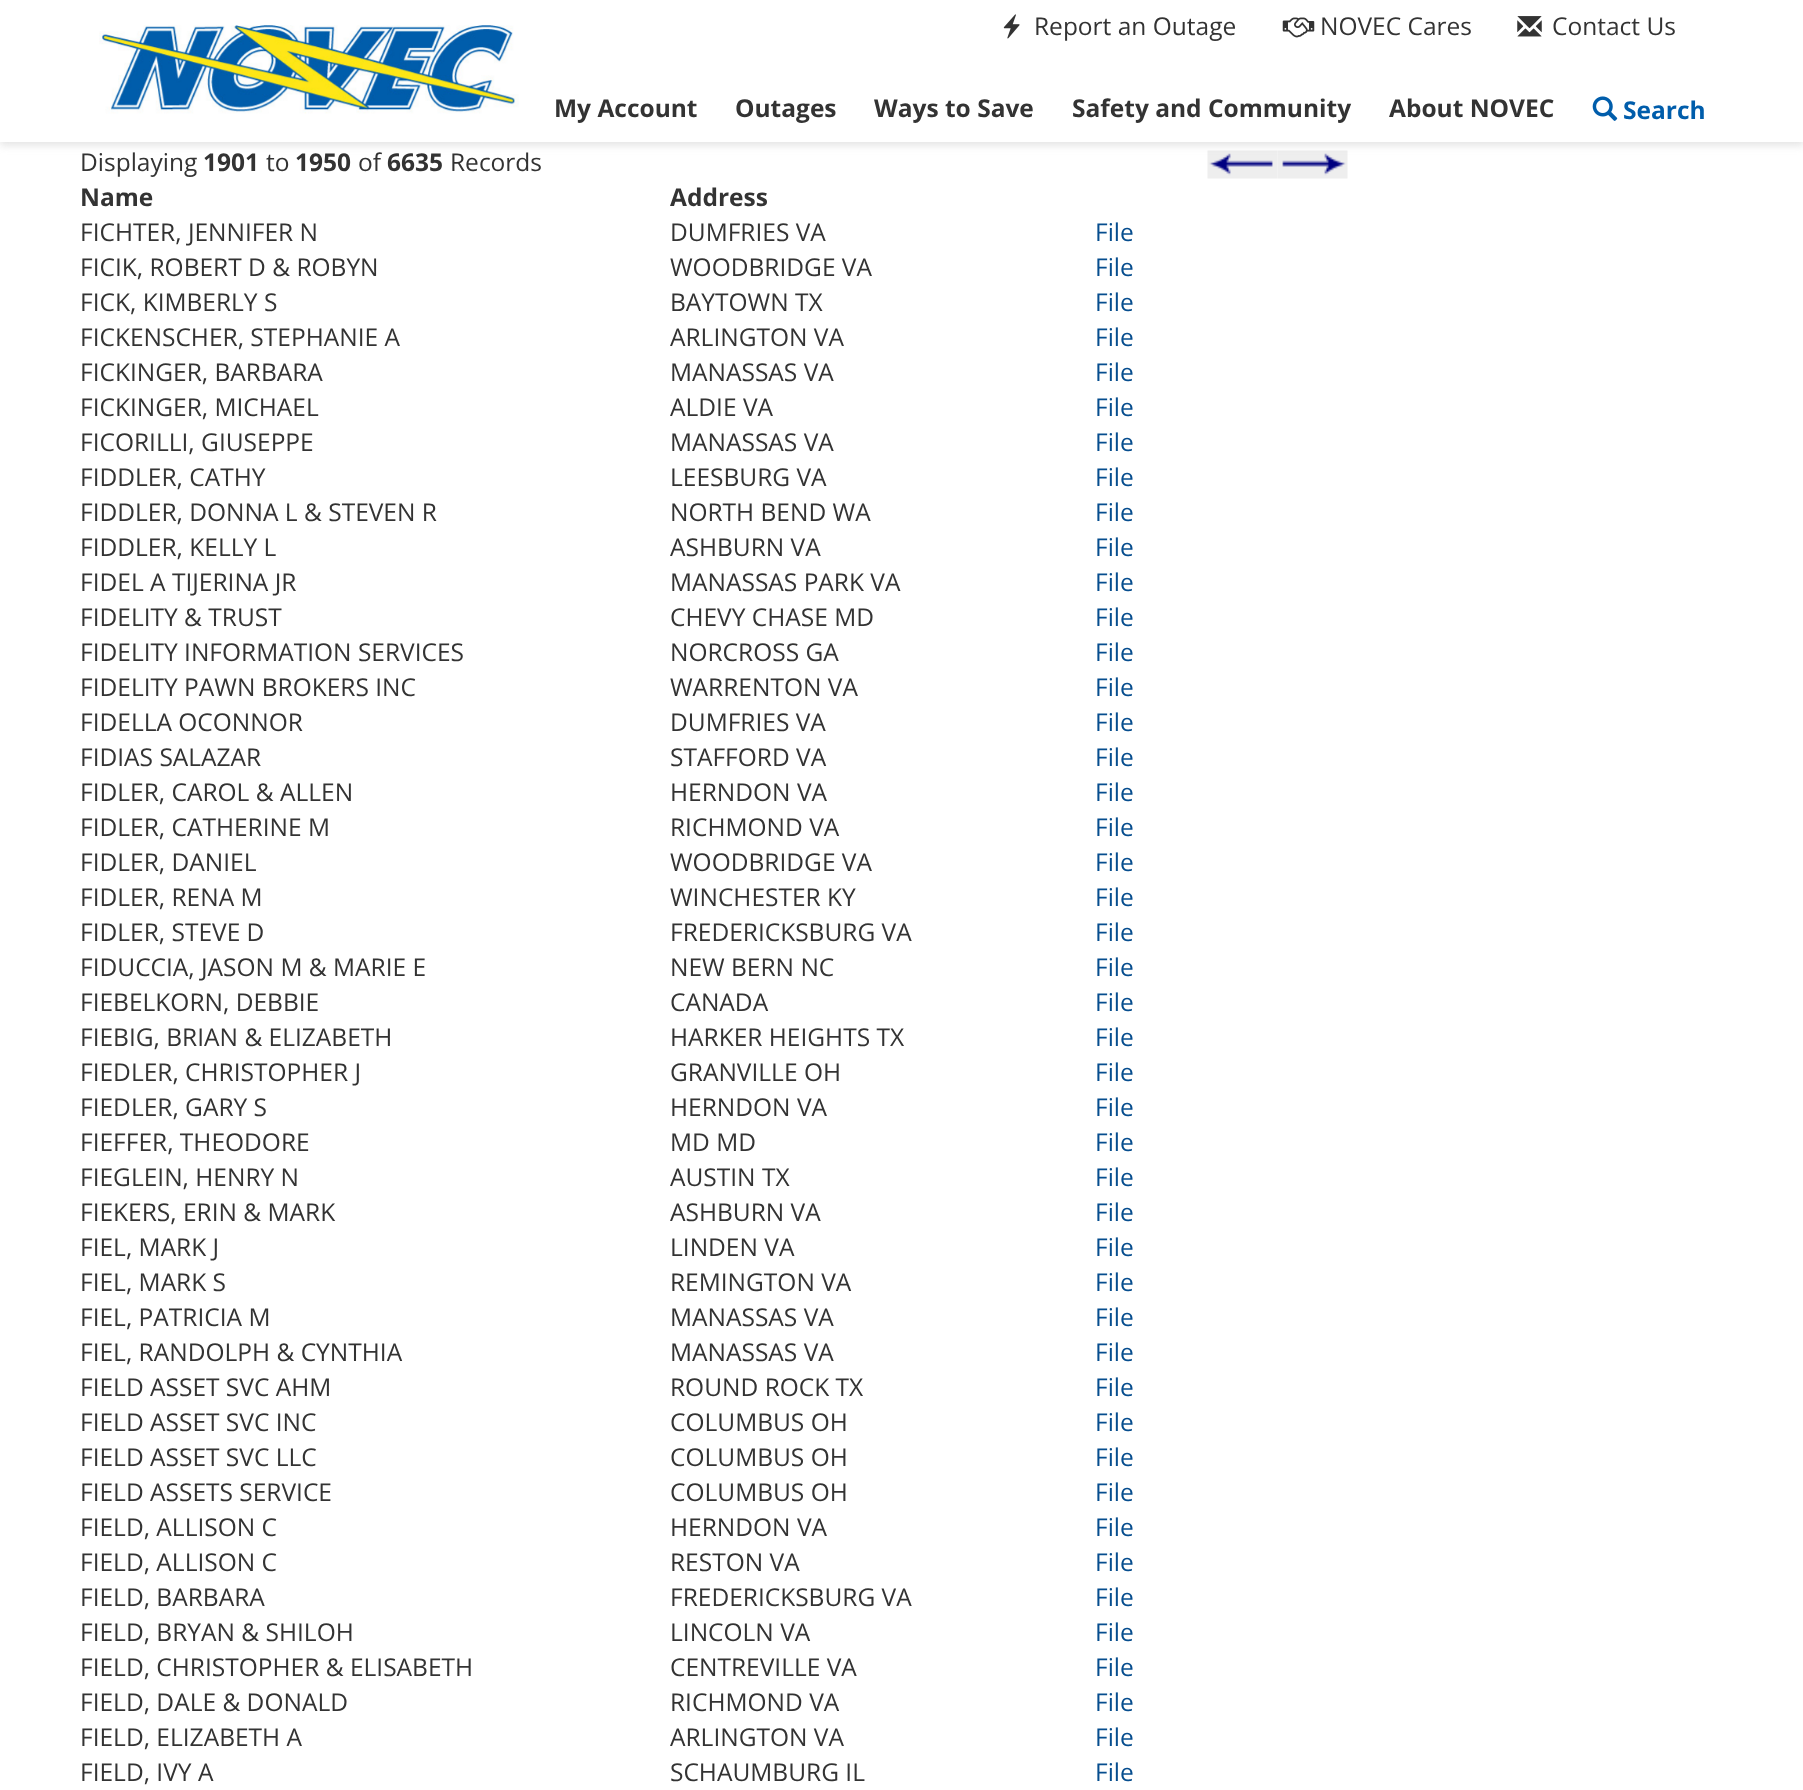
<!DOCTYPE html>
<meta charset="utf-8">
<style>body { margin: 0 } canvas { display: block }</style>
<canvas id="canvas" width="1803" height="1790"></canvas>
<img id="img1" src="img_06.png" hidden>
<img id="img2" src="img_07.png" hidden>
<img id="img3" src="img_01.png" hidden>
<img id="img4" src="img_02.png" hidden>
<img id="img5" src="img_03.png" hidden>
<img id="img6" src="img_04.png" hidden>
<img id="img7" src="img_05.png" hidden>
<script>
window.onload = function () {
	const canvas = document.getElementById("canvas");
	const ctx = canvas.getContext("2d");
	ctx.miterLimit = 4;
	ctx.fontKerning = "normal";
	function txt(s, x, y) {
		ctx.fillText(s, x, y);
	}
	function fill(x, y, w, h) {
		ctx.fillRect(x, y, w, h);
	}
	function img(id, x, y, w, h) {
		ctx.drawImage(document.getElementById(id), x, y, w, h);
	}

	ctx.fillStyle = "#FFFFFF";
	fill(0, 0, 1803, 1790);
	img("img1", 1207, 150, 71, 29);
	img("img2", 1277, 150, 71, 29);
	ctx.fillStyle = "rgba(155, 155, 155, 0.3)";
	ctx.filter = "blur(4.5px)";
	ctx.beginPath();
	ctx.rect(0, 4, 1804, 141);
	ctx.fill();
	ctx.filter = "none";
	ctx.fillStyle = "#FFFFFF";
	fill(0, 0, 1803, 142);
	img("img3", 99, 25, 420, 89);
	img("img4", 1003, 14, 17, 25);
	img("img5", 1282, 17, 33, 21);
	img("img6", 1517, 16, 25, 21);
	img("img7", 1592, 96, 26, 25);
	ctx.font = "24.5px Open Sans";
	ctx.fillStyle = "#333333";
	txt("Report an Outage", 1034, 35);
	txt("NOVEC Cares", 1320, 35);
	txt("Contact Us", 1552, 35);
	ctx.font = "bold 24.5px Open Sans";
	txt("My Account", 554, 117);
	txt("Outages", 735, 117);
	txt("Ways to Save", 874, 117);
	txt("Safety and Community", 1072, 117);
	txt("About NOVEC", 1389, 117);
	ctx.fillStyle = "#005DAB";
	txt("Search", 1623, 119);
	ctx.font = "24.5px Open Sans";
	ctx.fillStyle = "#333333";
	txt("Displaying", 80, 171);
	ctx.font = "bold 24.5px Open Sans";
	txt("1901", 203, 171);
	ctx.font = "24.5px Open Sans";
	txt("to", 266, 171);
	ctx.font = "bold 24.5px Open Sans";
	txt("1950", 295, 171);
	ctx.font = "24.5px Open Sans";
	txt("of", 358, 171);
	ctx.font = "bold 24.5px Open Sans";
	txt("6635", 387, 171);
	ctx.font = "24.5px Open Sans";
	txt("Records", 450, 171);
	ctx.font = "bold 24.5px Open Sans";
	txt("Name", 80, 206);
	txt("Address", 670, 206);
	ctx.font = "24.5px Open Sans";
	txt("FICHTER, JENNIFER N", 80, 241);
	txt("DUMFRIES VA", 670, 241);
	ctx.fillStyle = "#064D8E";
	txt("File", 1095, 241);
	ctx.fillStyle = "#333333";
	txt("FICIK, ROBERT D & ROBYN", 80, 276);
	txt("WOODBRIDGE VA", 670, 276);
	ctx.fillStyle = "#064D8E";
	txt("File", 1095, 276);
	ctx.fillStyle = "#333333";
	txt("FICK, KIMBERLY S", 80, 311);
	txt("BAYTOWN TX", 670, 311);
	ctx.fillStyle = "#064D8E";
	txt("File", 1095, 311);
	ctx.fillStyle = "#333333";
	txt("FICKENSCHER, STEPHANIE A", 80, 346);
	txt("ARLINGTON VA", 670, 346);
	ctx.fillStyle = "#064D8E";
	txt("File", 1095, 346);
	ctx.fillStyle = "#333333";
	txt("FICKINGER, BARBARA", 80, 381);
	txt("MANASSAS VA", 670, 381);
	ctx.fillStyle = "#064D8E";
	txt("File", 1095, 381);
	ctx.fillStyle = "#333333";
	txt("FICKINGER, MICHAEL", 80, 416);
	txt("ALDIE VA", 670, 416);
	ctx.fillStyle = "#064D8E";
	txt("File", 1095, 416);
	ctx.fillStyle = "#333333";
	txt("FICORILLI, GIUSEPPE", 80, 451);
	txt("MANASSAS VA", 670, 451);
	ctx.fillStyle = "#064D8E";
	txt("File", 1095, 451);
	ctx.fillStyle = "#333333";
	txt("FIDDLER, CATHY", 80, 486);
	txt("LEESBURG VA", 670, 486);
	ctx.fillStyle = "#064D8E";
	txt("File", 1095, 486);
	ctx.fillStyle = "#333333";
	txt("FIDDLER, DONNA L & STEVEN R", 80, 521);
	txt("NORTH BEND WA", 670, 521);
	ctx.fillStyle = "#064D8E";
	txt("File", 1095, 521);
	ctx.fillStyle = "#333333";
	txt("FIDDLER, KELLY L", 80, 556);
	txt("ASHBURN VA", 670, 556);
	ctx.fillStyle = "#064D8E";
	txt("File", 1095, 556);
	ctx.fillStyle = "#333333";
	txt("FIDEL A TIJERINA JR", 80, 591);
	txt("MANASSAS PARK VA", 670, 591);
	ctx.fillStyle = "#064D8E";
	txt("File", 1095, 591);
	ctx.fillStyle = "#333333";
	txt("FIDELITY & TRUST", 80, 626);
	txt("CHEVY CHASE MD", 670, 626);
	ctx.fillStyle = "#064D8E";
	txt("File", 1095, 626);
	ctx.fillStyle = "#333333";
	txt("FIDELITY INFORMATION SERVICES", 80, 661);
	txt("NORCROSS GA", 670, 661);
	ctx.fillStyle = "#064D8E";
	txt("File", 1095, 661);
	ctx.fillStyle = "#333333";
	txt("FIDELITY PAWN BROKERS INC", 80, 696);
	txt("WARRENTON VA", 670, 696);
	ctx.fillStyle = "#064D8E";
	txt("File", 1095, 696);
	ctx.fillStyle = "#333333";
	txt("FIDELLA OCONNOR", 80, 731);
	txt("DUMFRIES VA", 670, 731);
	ctx.fillStyle = "#064D8E";
	txt("File", 1095, 731);
	ctx.fillStyle = "#333333";
	txt("FIDIAS SALAZAR", 80, 766);
	txt("STAFFORD VA", 670, 766);
	ctx.fillStyle = "#064D8E";
	txt("File", 1095, 766);
	ctx.fillStyle = "#333333";
	txt("FIDLER, CAROL & ALLEN", 80, 801);
	txt("HERNDON VA", 670, 801);
	ctx.fillStyle = "#064D8E";
	txt("File", 1095, 801);
	ctx.fillStyle = "#333333";
	txt("FIDLER, CATHERINE M", 80, 836);
	txt("RICHMOND VA", 670, 836);
	ctx.fillStyle = "#064D8E";
	txt("File", 1095, 836);
	ctx.fillStyle = "#333333";
	txt("FIDLER, DANIEL", 80, 871);
	txt("WOODBRIDGE VA", 670, 871);
	ctx.fillStyle = "#064D8E";
	txt("File", 1095, 871);
	ctx.fillStyle = "#333333";
	txt("FIDLER, RENA M", 80, 906);
	txt("WINCHESTER KY", 670, 906);
	ctx.fillStyle = "#064D8E";
	txt("File", 1095, 906);
	ctx.fillStyle = "#333333";
	txt("FIDLER, STEVE D", 80, 941);
	txt("FREDERICKSBURG VA", 670, 941);
	ctx.fillStyle = "#064D8E";
	txt("File", 1095, 941);
	ctx.fillStyle = "#333333";
	txt("FIDUCCIA, JASON M & MARIE E", 80, 976);
	txt("NEW BERN NC", 670, 976);
	ctx.fillStyle = "#064D8E";
	txt("File", 1095, 976);
	ctx.fillStyle = "#333333";
	txt("FIEBELKORN, DEBBIE", 80, 1011);
	txt("CANADA", 670, 1011);
	ctx.fillStyle = "#064D8E";
	txt("File", 1095, 1011);
	ctx.fillStyle = "#333333";
	txt("FIEBIG, BRIAN & ELIZABETH", 80, 1046);
	txt("HARKER HEIGHTS TX", 670, 1046);
	ctx.fillStyle = "#064D8E";
	txt("File", 1095, 1046);
	ctx.fillStyle = "#333333";
	txt("FIEDLER, CHRISTOPHER J", 80, 1081);
	txt("GRANVILLE OH", 670, 1081);
	ctx.fillStyle = "#064D8E";
	txt("File", 1095, 1081);
	ctx.fillStyle = "#333333";
	txt("FIEDLER, GARY S", 80, 1116);
	txt("HERNDON VA", 670, 1116);
	ctx.fillStyle = "#064D8E";
	txt("File", 1095, 1116);
	ctx.fillStyle = "#333333";
	txt("FIEFFER, THEODORE", 80, 1151);
	txt("MD MD", 670, 1151);
	ctx.fillStyle = "#064D8E";
	txt("File", 1095, 1151);
	ctx.fillStyle = "#333333";
	txt("FIEGLEIN, HENRY N", 80, 1186);
	txt("AUSTIN TX", 670, 1186);
	ctx.fillStyle = "#064D8E";
	txt("File", 1095, 1186);
	ctx.fillStyle = "#333333";
	txt("FIEKERS, ERIN & MARK", 80, 1221);
	txt("ASHBURN VA", 670, 1221);
	ctx.fillStyle = "#064D8E";
	txt("File", 1095, 1221);
	ctx.fillStyle = "#333333";
	txt("FIEL, MARK J", 80, 1256);
	txt("LINDEN VA", 670, 1256);
	ctx.fillStyle = "#064D8E";
	txt("File", 1095, 1256);
	ctx.fillStyle = "#333333";
	txt("FIEL, MARK S", 80, 1291);
	txt("REMINGTON VA", 670, 1291);
	ctx.fillStyle = "#064D8E";
	txt("File", 1095, 1291);
	ctx.fillStyle = "#333333";
	txt("FIEL, PATRICIA M", 80, 1326);
	txt("MANASSAS VA", 670, 1326);
	ctx.fillStyle = "#064D8E";
	txt("File", 1095, 1326);
	ctx.fillStyle = "#333333";
	txt("FIEL, RANDOLPH & CYNTHIA", 80, 1361);
	txt("MANASSAS VA", 670, 1361);
	ctx.fillStyle = "#064D8E";
	txt("File", 1095, 1361);
	ctx.fillStyle = "#333333";
	txt("FIELD ASSET SVC AHM", 80, 1396);
	txt("ROUND ROCK TX", 670, 1396);
	ctx.fillStyle = "#064D8E";
	txt("File", 1095, 1396);
	ctx.fillStyle = "#333333";
	txt("FIELD ASSET SVC INC", 80, 1431);
	txt("COLUMBUS OH", 670, 1431);
	ctx.fillStyle = "#064D8E";
	txt("File", 1095, 1431);
	ctx.fillStyle = "#333333";
	txt("FIELD ASSET SVC LLC", 80, 1466);
	txt("COLUMBUS OH", 670, 1466);
	ctx.fillStyle = "#064D8E";
	txt("File", 1095, 1466);
	ctx.fillStyle = "#333333";
	txt("FIELD ASSETS SERVICE", 80, 1501);
	txt("COLUMBUS OH", 670, 1501);
	ctx.fillStyle = "#064D8E";
	txt("File", 1095, 1501);
	ctx.fillStyle = "#333333";
	txt("FIELD, ALLISON C", 80, 1536);
	txt("HERNDON VA", 670, 1536);
	ctx.fillStyle = "#064D8E";
	txt("File", 1095, 1536);
	ctx.fillStyle = "#333333";
	txt("FIELD, ALLISON C", 80, 1571);
	txt("RESTON VA", 670, 1571);
	ctx.fillStyle = "#064D8E";
	txt("File", 1095, 1571);
	ctx.fillStyle = "#333333";
	txt("FIELD, BARBARA", 80, 1606);
	txt("FREDERICKSBURG VA", 670, 1606);
	ctx.fillStyle = "#064D8E";
	txt("File", 1095, 1606);
	ctx.fillStyle = "#333333";
	txt("FIELD, BRYAN & SHILOH", 80, 1641);
	txt("LINCOLN VA", 670, 1641);
	ctx.fillStyle = "#064D8E";
	txt("File", 1095, 1641);
	ctx.fillStyle = "#333333";
	txt("FIELD, CHRISTOPHER & ELISABETH", 80, 1676);
	txt("CENTREVILLE VA", 670, 1676);
	ctx.fillStyle = "#064D8E";
	txt("File", 1095, 1676);
	ctx.fillStyle = "#333333";
	txt("FIELD, DALE & DONALD", 80, 1711);
	txt("RICHMOND VA", 670, 1711);
	ctx.fillStyle = "#064D8E";
	txt("File", 1095, 1711);
	ctx.fillStyle = "#333333";
	txt("FIELD, ELIZABETH A", 80, 1746);
	txt("ARLINGTON VA", 670, 1746);
	ctx.fillStyle = "#064D8E";
	txt("File", 1095, 1746);
	ctx.fillStyle = "#333333";
	txt("FIELD, IVY A", 80, 1781);
	txt("SCHAUMBURG IL", 670, 1781);
	ctx.fillStyle = "#064D8E";
	txt("File", 1095, 1781);
};
</script>
